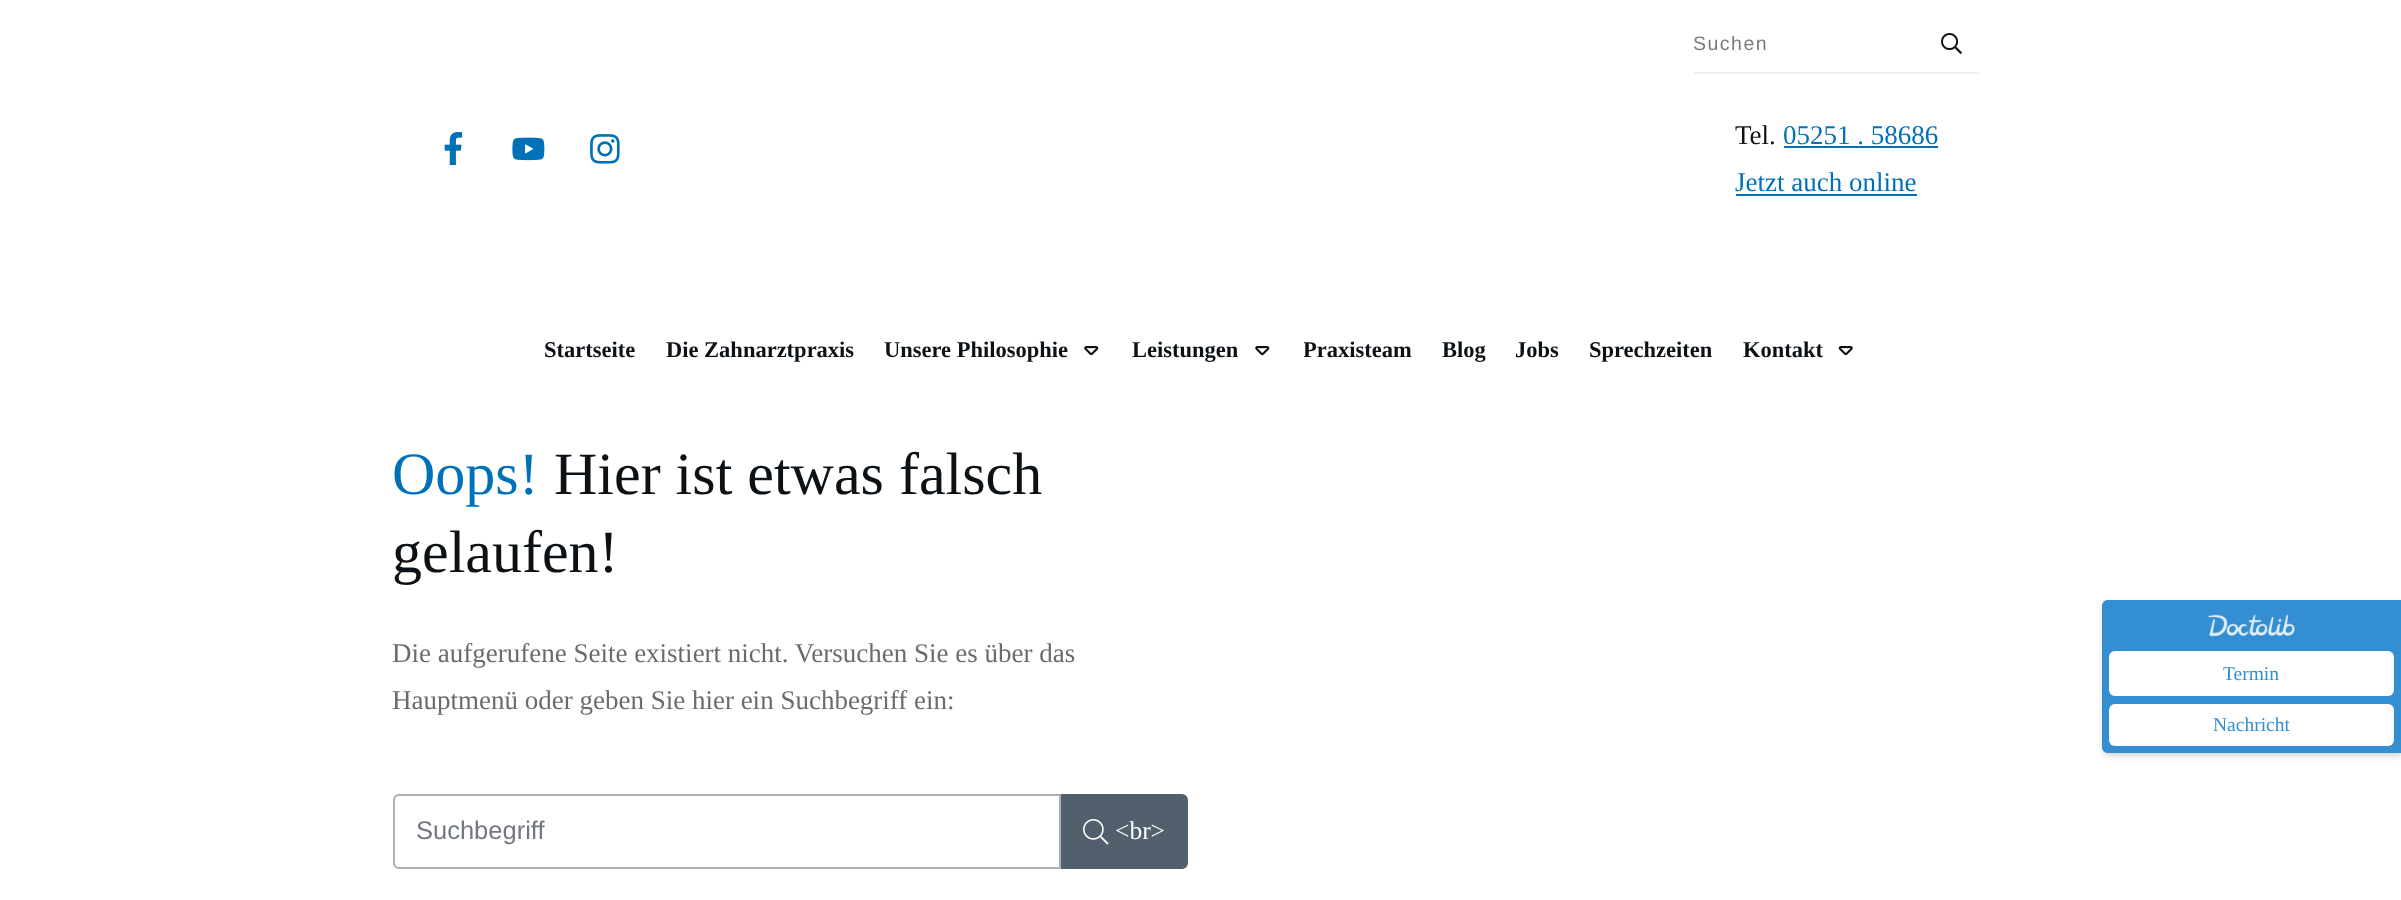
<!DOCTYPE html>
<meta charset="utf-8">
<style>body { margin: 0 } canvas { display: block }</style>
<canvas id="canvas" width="2401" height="900"></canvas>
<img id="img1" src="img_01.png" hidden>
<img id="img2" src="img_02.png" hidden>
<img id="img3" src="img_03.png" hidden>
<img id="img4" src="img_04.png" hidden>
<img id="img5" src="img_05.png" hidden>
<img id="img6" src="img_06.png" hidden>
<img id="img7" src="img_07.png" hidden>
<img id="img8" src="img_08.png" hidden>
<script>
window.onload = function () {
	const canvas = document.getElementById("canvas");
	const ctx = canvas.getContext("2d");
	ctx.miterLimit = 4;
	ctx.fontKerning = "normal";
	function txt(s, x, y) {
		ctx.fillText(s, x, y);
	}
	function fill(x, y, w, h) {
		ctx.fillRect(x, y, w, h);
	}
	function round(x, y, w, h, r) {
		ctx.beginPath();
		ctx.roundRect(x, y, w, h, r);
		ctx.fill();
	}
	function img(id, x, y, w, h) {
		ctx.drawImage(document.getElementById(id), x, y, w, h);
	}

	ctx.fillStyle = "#FFFFFF";
	fill(0, 0, 2401, 900);
	img("img1", 444, 132, 19, 33);
	img("img2", 512, 137, 33, 24);
	img("img3", 590, 134, 30, 30);
	ctx.fillStyle = "#F0F0F0";
	fill(1694, 72, 286, 2);
	img("img4", 1941, 33, 21, 21);
	ctx.fillStyle = "#0171B7";
	fill(1784, 146, 154, 2);
	fill(1736, 194, 181, 2);
	img("img5", 1084, 346, 15, 10);
	img("img5", 1255, 346, 15, 10);
	img("img6", 1838, 346, 15, 10);
	ctx.beginPath();
	ctx.roundRect(394, 795, 666, 73, [5, 0, 0, 5]);
	ctx.strokeStyle = "#A9B0B6";
	ctx.lineWidth = 2;
	ctx.stroke();
	ctx.fillStyle = "#52606D";
	ctx.beginPath();
	ctx.roundRect(1061, 794, 127, 75, [0, 6, 6, 0]);
	ctx.fill();
	img("img7", 1083, 819, 26, 26);
	ctx.fillStyle = "rgba(38, 38, 38, 0.2)";
	ctx.filter = "blur(3px)";
	ctx.beginPath();
	ctx.roundRect(2103, 603, 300, 153, 6);
	ctx.fill();
	ctx.filter = "none";
	ctx.fillStyle = "#348ED2";
	ctx.beginPath();
	ctx.moveTo(2108, 600);
	ctx.lineTo(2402, 600);
	ctx.lineTo(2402, 753);
	ctx.lineTo(2108, 753);
	ctx.bezierCurveTo(2104.5, 753, 2102, 750.5, 2102, 747);
	ctx.lineTo(2102, 606);
	ctx.bezierCurveTo(2102, 602.5, 2104.5, 600, 2108, 600);
	ctx.closePath();
	ctx.fill();
	img("img8", 2208, 614, 87, 23);
	ctx.fillStyle = "#FFFFFF";
	round(2109, 651, 285, 45, 6);
	round(2109, 704, 285, 42, 6);
	ctx.letterSpacing = "1.5px";
	ctx.font = "19.5px Liberation Sans";
	ctx.fillStyle = "#7A7A7A";
	txt("Suchen", 1693, 50);
	ctx.letterSpacing = "0px";
	ctx.font = "27px Liberation Serif";
	ctx.fillStyle = "#0C1115";
	txt("Tel.", 1735, 144);
	ctx.fillStyle = "#0171B7";
	txt("05251 . 58686", 1783, 144);
	txt("Jetzt auch online", 1735, 191);
	ctx.font = "bold 22.5px Liberation Serif";
	ctx.fillStyle = "#0C1115";
	txt("Startseite", 544, 357);
	txt("Die Zahnarztpraxis", 666, 357);
	txt("Unsere Philosophie", 884, 357);
	txt("Leistungen", 1132, 357);
	ctx.save();
	ctx.beginPath();
	ctx.rect(1304, 327, 108, 45);
	ctx.clip();
	txt("Praxisteam", 1303, 357);
	ctx.restore();
	txt("Blog", 1442, 357);
	txt("Jobs", 1515, 357);
	txt("Sprechzeiten", 1589, 357);
	txt("Kontakt", 1743, 357);
	ctx.font = "60px Liberation Serif";
	ctx.fillStyle = "#0171B7";
	txt("Oops!", 392, 494);
	ctx.fillStyle = "#0C1115";
	txt("Hier ist etwas falsch", 554, 494);
	txt("gelaufen!", 392, 572);
	ctx.font = "27px Liberation Serif";
	ctx.fillStyle = "#6A6B6C";
	txt("Die aufgerufene Seite existiert nicht. Versuchen Sie es über das", 392, 662);
	txt("Hauptmenü oder geben Sie hier ein Suchbegriff ein:", 392, 709);
	ctx.font = "25.5px Liberation Sans";
	ctx.fillStyle = "#73787F";
	txt("Suchbegriff", 416, 839);
	ctx.font = "25.5px Liberation Serif";
	ctx.fillStyle = "#FFFFFF";
	txt("<br>", 1115, 839);
	ctx.font = "19.5px Liberation Serif";
	ctx.fillStyle = "#348ED2";
	txt("Termin", 2223, 680);
	txt("Nachricht", 2213, 731);
};
</script>
